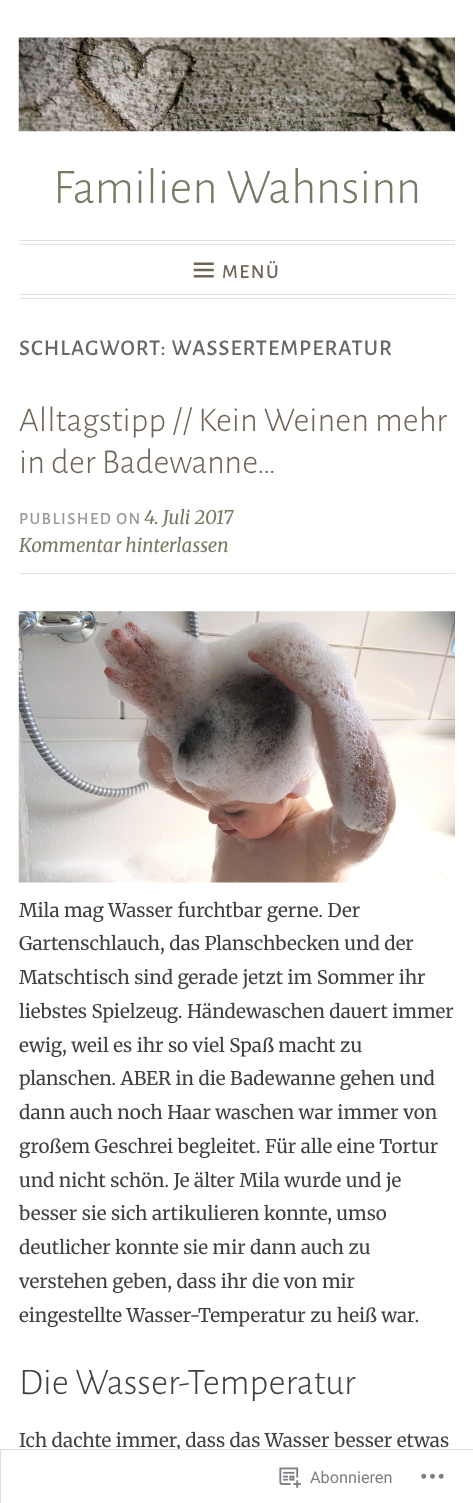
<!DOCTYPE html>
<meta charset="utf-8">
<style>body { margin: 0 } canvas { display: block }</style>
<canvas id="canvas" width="473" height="1503"></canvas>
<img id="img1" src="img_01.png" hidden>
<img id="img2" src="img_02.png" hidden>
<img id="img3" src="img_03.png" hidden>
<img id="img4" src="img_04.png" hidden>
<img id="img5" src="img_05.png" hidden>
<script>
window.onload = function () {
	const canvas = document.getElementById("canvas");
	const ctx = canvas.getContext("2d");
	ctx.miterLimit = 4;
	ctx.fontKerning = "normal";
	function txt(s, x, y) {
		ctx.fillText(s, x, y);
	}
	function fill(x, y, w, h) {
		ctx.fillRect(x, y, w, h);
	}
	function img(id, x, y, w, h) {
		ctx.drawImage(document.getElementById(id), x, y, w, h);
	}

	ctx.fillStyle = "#FFFFFF";
	fill(0, 0, 473, 1503);
	img("img1", 18, 37, 437, 95);
	ctx.fillStyle = "#E1E1E1";
	fill(19, 240, 436, 1);
	fill(19, 244, 436, 1);
	fill(19, 294, 436, 1);
	fill(19, 298, 436, 1);
	img("img2", 193, 262, 21, 16);
	fill(19, 573, 436, 1);
	img("img3", 18, 611, 437, 272);
	ctx.font = "300 50px Alegreya Sans";
	ctx.fillStyle = "#7A7863";
	txt("Familien Wahnsinn", 53, 203);
	ctx.letterSpacing = "1.5px";
	ctx.font = "500 20px Alegreya Sans";
	ctx.fillStyle = "#6E6556";
	txt("MENÜ", 222, 278);
	ctx.letterSpacing = "1.1px";
	ctx.font = "500 22.5px Alegreya Sans";
	ctx.fillStyle = "#666666";
	txt("SCHLAGWORT: WASSERTEMPERATUR", 19, 355);
	ctx.letterSpacing = "0px";
	ctx.font = "300 35px Alegreya Sans";
	ctx.fillStyle = "#6E6556";
	txt("Alltagstipp // Kein Weinen mehr", 19, 431);
	txt("in der Badewanne…", 19, 473);
	ctx.letterSpacing = "1.4px";
	ctx.font = "500 17px Alegreya Sans";
	ctx.fillStyle = "#999999";
	txt("PUBLISHED ON", 19, 524);
	ctx.letterSpacing = "0px";
	ctx.font = "italic 18.75px Merriweather";
	ctx.fillStyle = "#7A7863";
	txt("4. Juli 2017", 144, 524);
	txt("Kommentar hinterlassen", 19, 552);
	ctx.font = "18.75px Merriweather";
	ctx.fillStyle = "#404040";
	txt("Mila mag Wasser furchtbar gerne. Der", 19, 917);
	txt("Gartenschlauch, das Planschbecken und der", 19, 950);
	txt("Matschtisch sind gerade jetzt im Sommer ihr", 19, 984);
	txt("liebstes Spielzeug. Händewaschen dauert immer", 19, 1018);
	txt("ewig, weil es ihr so viel Spaß macht zu", 19, 1052);
	txt("planschen. ABER in die Badewanne gehen und", 19, 1085);
	txt("dann auch noch Haar waschen war immer von", 19, 1119);
	txt("großem Geschrei begleitet. Für alle eine Tortur", 19, 1153);
	txt("und nicht schön. Je älter Mila wurde und je", 19, 1187);
	txt("besser sie sich artikulieren konnte, umso", 19, 1220);
	txt("deutlicher konnte sie mir dann auch zu", 19, 1254);
	txt("verstehen geben, dass ihr die von mir", 19, 1288);
	txt("eingestellte Wasser-Temperatur zu heiß war.", 19, 1322);
	ctx.font = "300 37.5px Alegreya Sans";
	txt("Die Wasser-Temperatur", 19, 1394);
	ctx.font = "18.75px Merriweather";
	txt("Ich dachte immer, dass das Wasser besser etwas", 19, 1447);
	ctx.fillStyle = "rgba(255, 255, 255, 0.98)";
	fill(176, 1449, 3, 3);
	ctx.strokeStyle = "rgba(220, 220, 222, 0.98)";
	ctx.strokeRect(0.5, 1449.5, 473, 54);
	img("img4", 279, 1467, 22, 21);
	ctx.font = "16.25px Roboto";
	ctx.fillStyle = "#7B7F84";
	txt("Abonnieren", 310, 1483);
	img("img5", 421, 1473, 23, 6);
};
</script>
